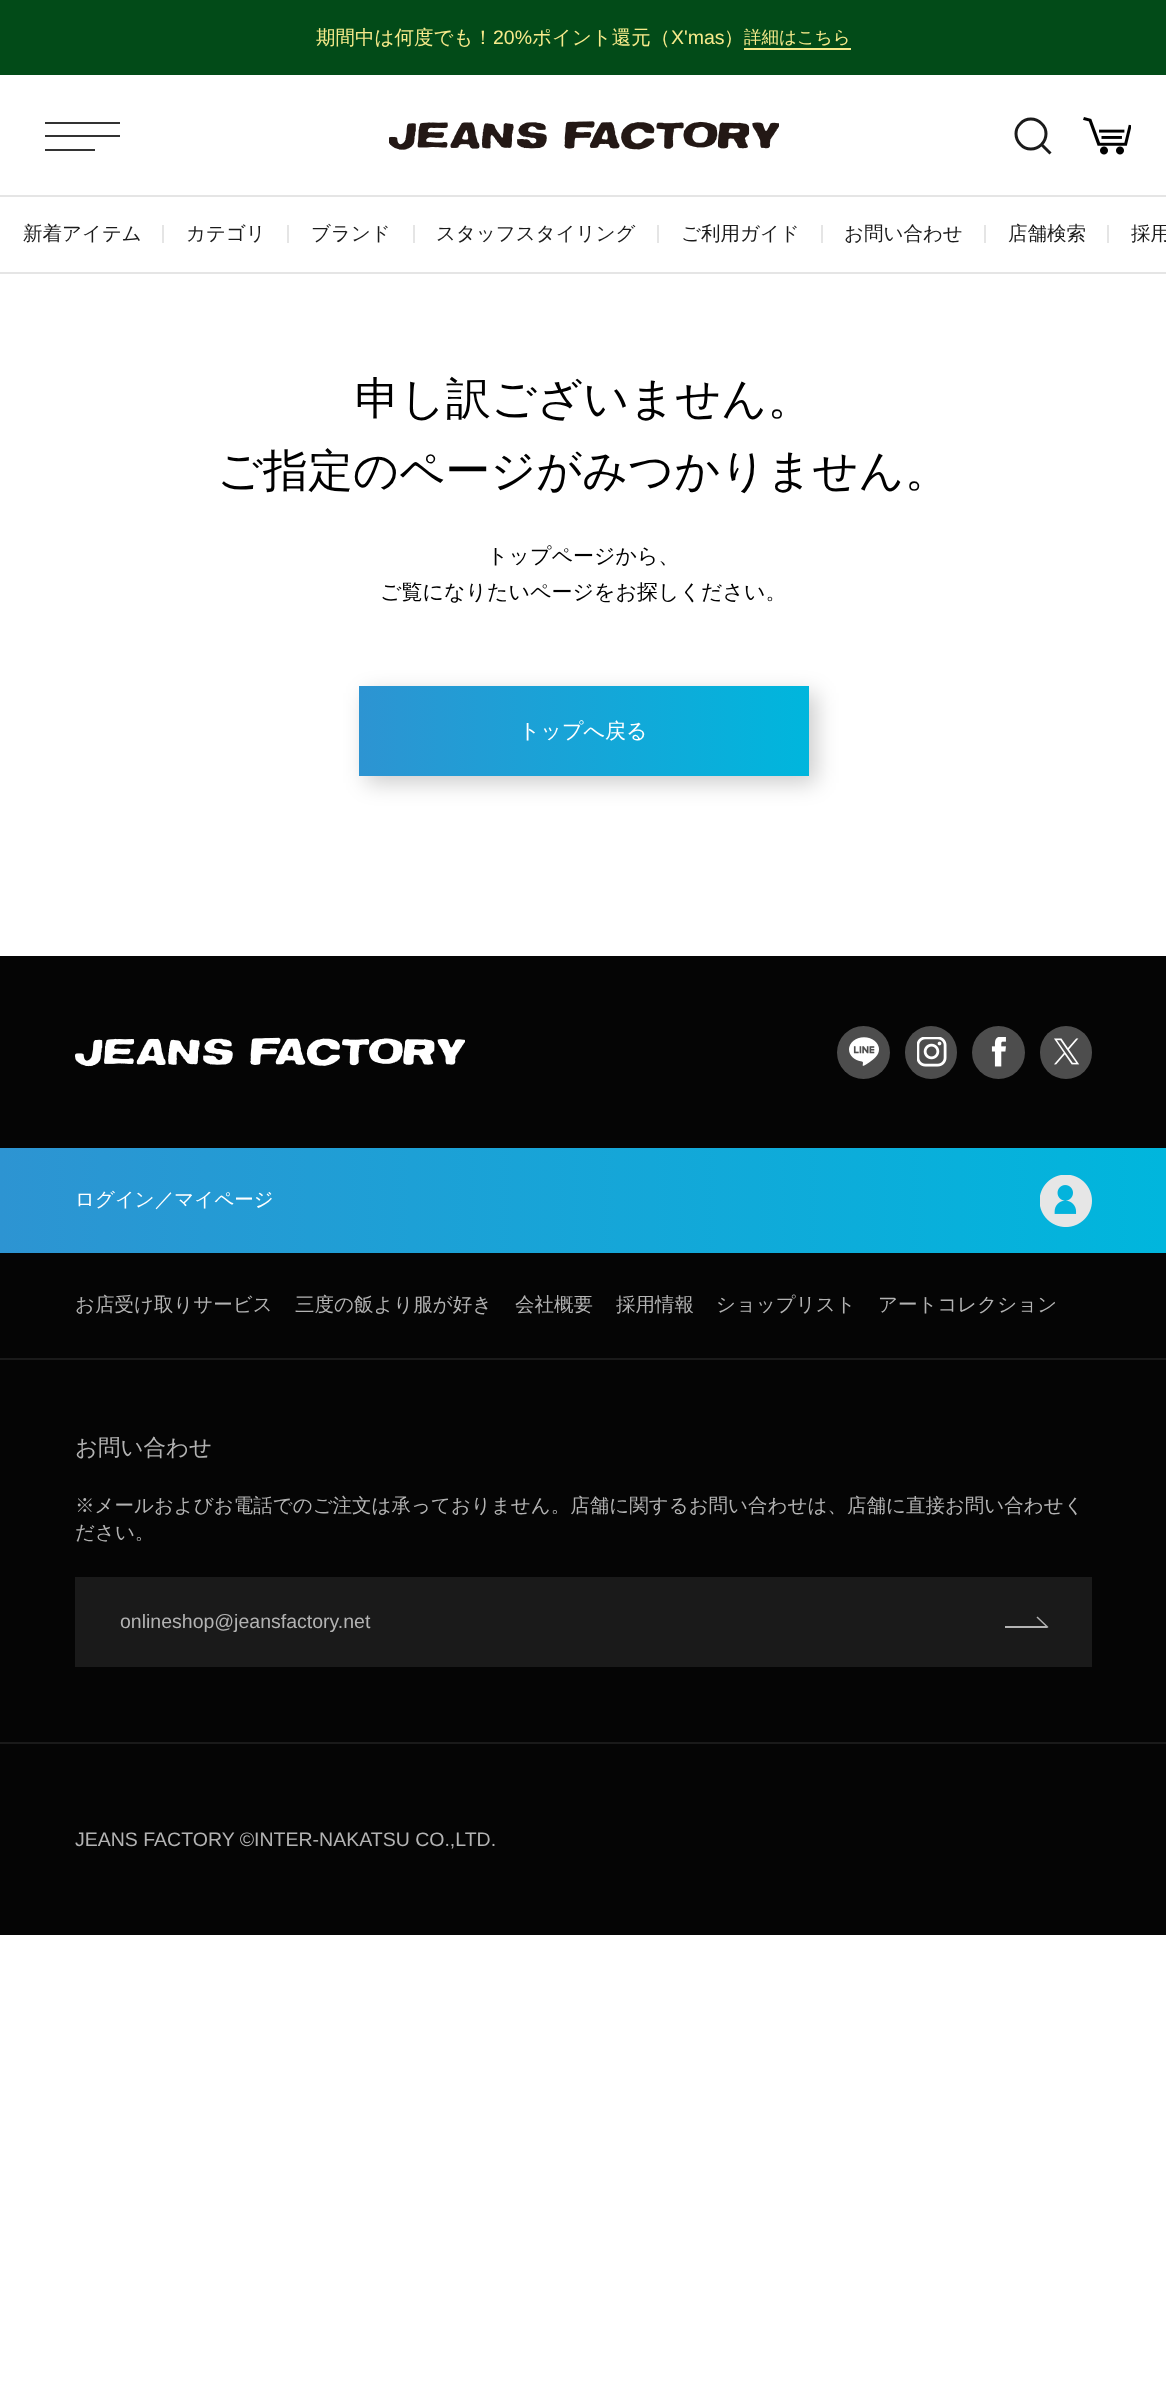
<!DOCTYPE html>
<meta charset="utf-8">
<style>body { margin: 0 } canvas { display: block }</style>
<canvas id="canvas" width="1166" height="2401"></canvas>
<img id="img1" src="img_01.png" hidden>
<img id="img2" src="img_02.png" hidden>
<img id="img3" src="img_03.png" hidden>
<img id="img4" src="img_04.png" hidden>
<img id="img5" src="img_05.png" hidden>
<img id="img6" src="img_06.png" hidden>
<img id="img7" src="img_07.png" hidden>
<img id="img8" src="img_08.png" hidden>
<script>
window.onload = function () {
	const canvas = document.getElementById("canvas");
	const ctx = canvas.getContext("2d");
	ctx.miterLimit = 4;
	ctx.fontKerning = "normal";
	function txt(s, x, y) {
		ctx.fillText(s, x, y);
	}
	function fill(x, y, w, h) {
		ctx.fillRect(x, y, w, h);
	}
	function round(x, y, w, h, r) {
		ctx.beginPath();
		ctx.roundRect(x, y, w, h, r);
		ctx.fill();
	}
	function img(id, x, y, w, h) {
		ctx.drawImage(document.getElementById(id), x, y, w, h);
	}
	let gradient;

	ctx.fillStyle = "#FFFFFF";
	fill(0, 0, 1166, 2401);
	ctx.fillStyle = "#024B18";
	fill(0, 0, 1166, 75);
	ctx.fillStyle = "#F7EA8B";
	fill(744, 48, 107, 2);
	ctx.fillStyle = "#333333";
	fill(45, 122, 75, 2);
	fill(45, 135, 75, 2);
	fill(45, 149, 50, 2);
	img("img1", 389, 121, 390, 29);
	ctx.beginPath();
	ctx.moveTo(1050.5, 153.5);
	ctx.lineTo(1041.5, 144.5);
	ctx.closePath();
	ctx.moveTo(1041.5, 123.5);
	ctx.bezierCurveTo(1047.5, 129, 1047.5, 138.5, 1041.5, 144.5);
	ctx.bezierCurveTo(1035.5, 150.5, 1026, 150.5, 1020.5, 144.5);
	ctx.bezierCurveTo(1014.5, 138.5, 1014.5, 129, 1020.5, 123.5);
	ctx.bezierCurveTo(1026, 117.5, 1035.5, 117.5, 1041.5, 123.5);
	ctx.closePath();
	ctx.strokeStyle = "#1B1B1B";
	ctx.lineWidth = 3;
	ctx.lineCap = "round";
	ctx.stroke();
	img("img2", 1083, 117, 48, 38);
	ctx.fillStyle = "#E5E5E5";
	fill(0, 195, 1166, 2);
	fill(0, 272, 1166, 2);
	fill(162, 225, 2, 18);
	fill(287, 225, 2, 18);
	fill(413, 225, 2, 18);
	fill(657, 225, 2, 18);
	fill(821, 225, 2, 18);
	fill(984, 225, 2, 18);
	fill(1107, 225, 2, 18);
	ctx.fillStyle = "rgba(0, 0, 0, 0.2)";
	ctx.filter = "blur(11px)";
	ctx.beginPath();
	ctx.rect(366, 693, 450, 90);
	ctx.fill();
	ctx.filter = "none";
	gradient = ctx.createLinearGradient(359, 731, 809, 731);
	gradient.addColorStop(0, "#2D94D2");
	gradient.addColorStop(1, "#00B6DD");
	ctx.fillStyle = gradient;
	fill(359, 686, 450, 90);
	ctx.fillStyle = "#050505";
	fill(0, 956, 1166, 979);
	img("img3", 75, 1037, 390, 30);
	ctx.fillStyle = "#4D4D4D";
	ctx.beginPath();
	ctx.arc(863.5, 1052.5, 26.5, 0, Math.PI * 2);
	ctx.fill();
	img("img4", 849, 1037, 30, 29);
	round(905, 1026, 52, 53, 26);
	img("img5", 917, 1037, 30, 30);
	ctx.beginPath();
	ctx.arc(998.5, 1052.5, 26.5, 0, Math.PI * 2);
	ctx.fill();
	img("img6", 991, 1037, 15, 30);
	round(1040, 1026, 52, 53, 26);
	img("img7", 1054, 1038, 26, 27);
	gradient = ctx.createLinearGradient(0, 1200, 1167, 1200);
	gradient.addColorStop(0, "#2D94D2");
	gradient.addColorStop(1, "#00B6DD");
	ctx.fillStyle = gradient;
	fill(0, 1148, 1166, 105);
	img("img8", 1040, 1175, 52, 52);
	ctx.fillStyle = "#1A1A1A";
	fill(0, 1358, 1166, 2);
	fill(75, 1577, 1017, 90);
	ctx.fillStyle = "#B3B3B3";
	ctx.beginPath();
	ctx.moveTo(1047.5, 1628);
	ctx.lineTo(1036.5, 1617.5);
	ctx.lineTo(1037.5, 1616.5);
	ctx.lineTo(1048.5, 1627);
	ctx.closePath();
	ctx.fill();
	fill(1005, 1626, 42, 2);
	ctx.fillStyle = "#1A1A1A";
	fill(0, 1742, 1166, 2);
	ctx.font = "500 19.5px WenQuanYi Zen Hei";
	ctx.fillStyle = "#F7EA8B";
	txt("期間中は何度でも！", 316, 44);
	ctx.font = "19.5px Liberation Sans";
	txt("20%", 493, 44);
	ctx.font = "500 19.5px WenQuanYi Zen Hei";
	txt("ポイント還元（", 532, 44);
	ctx.font = "19.5px Liberation Sans";
	txt("X'mas", 671, 44);
	ctx.font = "500 19.5px WenQuanYi Zen Hei";
	txt("）", 724, 44);
	ctx.font = "500 17.5px WenQuanYi Zen Hei";
	txt("詳細はこちら", 744, 43);
	ctx.font = "500 19.5px WenQuanYi Zen Hei";
	ctx.fillStyle = "#1B1B1B";
	txt("新着アイテム", 23, 240);
	txt("カテゴリ", 186, 240);
	txt("ブランド", 311, 240);
	txt("スタッフスタイリング", 436, 240);
	txt("ご利用ガイド", 681, 240);
	txt("お問い合わせ", 844, 240);
	txt("店舗検索", 1008, 240);
	txt("採用", 1131, 240);
	ctx.font = "500 45px WenQuanYi Zen Hei";
	ctx.fillStyle = "#000000";
	txt("申し訳ございません。", 355, 414);
	txt("ご指定のページがみつかりません。", 217, 486);
	ctx.font = "500 21px WenQuanYi Zen Hei";
	txt("トップページから、", 487, 563);
	txt("ご覧になりたいページをお探しください。", 380, 599);
	ctx.fillStyle = "#FFFFFF";
	txt("トップへ戻る", 519, 738);
	ctx.font = "500 19.5px WenQuanYi Zen Hei";
	txt("ログイン／マイページ", 75, 1206);
	ctx.fillStyle = "#B3B3B3";
	txt("お店受け取りサービス", 75, 1311);
	txt("三度の飯より服が好き", 295, 1311);
	txt("会社概要", 515, 1311);
	txt("採用情報", 616, 1311);
	txt("ショップリスト", 716, 1311);
	txt("アートコレクション", 878, 1311);
	ctx.font = "500 22.5px WenQuanYi Zen Hei";
	txt("お問い合わせ", 75, 1455);
	ctx.font = "500 19.5px WenQuanYi Zen Hei";
	txt("※メールおよびお電話でのご注文は承っておりません。店舗に関するお問い合わせは、店舗に直接お問い合わせく", 75, 1512);
	txt("ださい。", 75, 1539);
	ctx.font = "19.5px Liberation Sans";
	txt("onlineshop@jeansfactory.net", 120, 1628);
	txt("JEANS FACTORY ©INTER-NAKATSU CO.,LTD.", 75, 1846);
};
</script>
